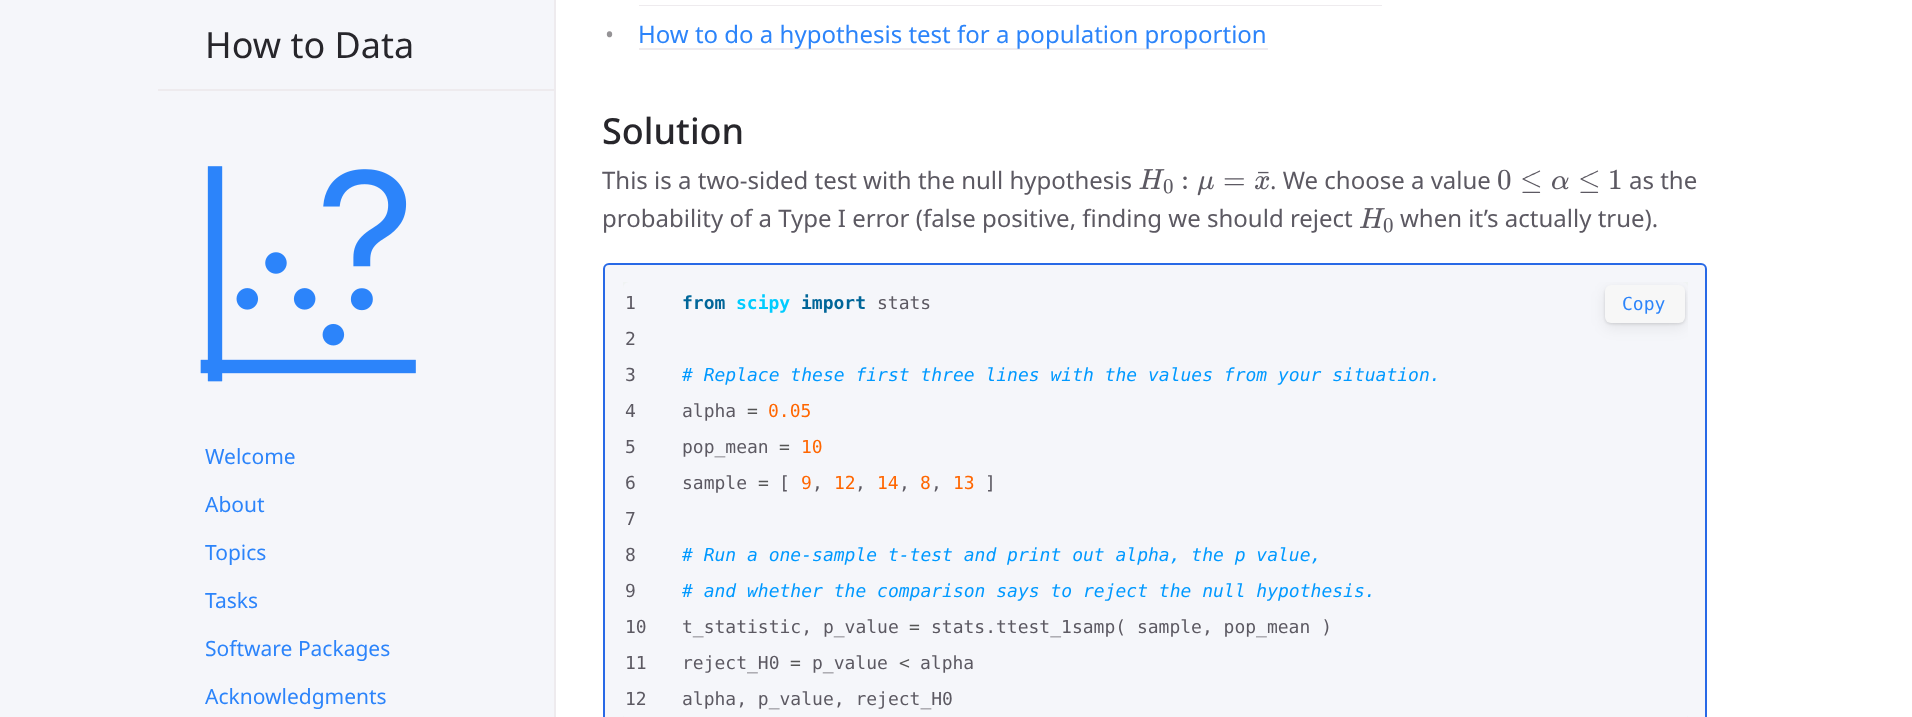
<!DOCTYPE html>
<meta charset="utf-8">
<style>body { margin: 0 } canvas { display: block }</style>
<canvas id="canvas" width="1912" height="717"></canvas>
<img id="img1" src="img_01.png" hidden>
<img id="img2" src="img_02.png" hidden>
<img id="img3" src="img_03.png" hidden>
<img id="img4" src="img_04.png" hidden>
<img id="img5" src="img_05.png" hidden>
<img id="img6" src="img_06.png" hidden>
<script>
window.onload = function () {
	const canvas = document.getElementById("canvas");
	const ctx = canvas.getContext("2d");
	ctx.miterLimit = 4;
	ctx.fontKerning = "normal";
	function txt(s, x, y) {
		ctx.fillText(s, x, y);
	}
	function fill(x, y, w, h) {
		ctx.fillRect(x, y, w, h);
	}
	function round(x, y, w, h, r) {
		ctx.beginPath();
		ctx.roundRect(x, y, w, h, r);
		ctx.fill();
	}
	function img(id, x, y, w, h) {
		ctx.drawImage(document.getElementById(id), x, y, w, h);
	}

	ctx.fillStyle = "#FFFFFF";
	fill(0, 0, 1912, 717);
	ctx.fillStyle = "#F5F6FA";
	fill(0, 0, 554, 717);
	ctx.fillStyle = "#EEEBEE";
	fill(554, 0, 2, 717);
	fill(158, 89, 396, 2);
	img("img1", 200, 166, 216, 216);
	fill(639, 5, 743, 1);
	fill(639, 48, 629, 2);
	img("img2", 1255, 176, 15, 14);
	img("img3", 1139, 169, 26, 20);
	img("img4", 1197, 176, 17, 20);
	img("img5", 1552, 176, 17, 14);
	img("img6", 1359, 208, 26, 20);
	ctx.fillStyle = "#F5F6FA";
	ctx.beginPath();
	ctx.roundRect(604, 264, 1102, 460, 5);
	ctx.fill();
	ctx.strokeStyle = "#2869E6";
	ctx.lineWidth = 2;
	ctx.stroke();
	ctx.fillStyle = "#F0F3F3";
	fill(623, 282, 1065, 435);
	ctx.fillStyle = "#F5F6FA";
	round(623, 282, 1065, 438, 6);
	ctx.save();
	ctx.beginPath();
	ctx.roundRect(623, 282, 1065, 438, 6);
	ctx.clip();
	ctx.fillStyle = "rgba(0, 0, 0, 0.08)";
	ctx.filter = "blur(7.5px)";
	ctx.beginPath();
	ctx.roundRect(1605, 290, 80, 37, 6);
	ctx.fill();
	ctx.filter = "none";
	ctx.restore();
	ctx.fillStyle = "rgba(0, 0, 0, 0.12)";
	ctx.filter = "blur(1.5px)";
	ctx.beginPath();
	ctx.roundRect(1605, 287, 80, 37, 6);
	ctx.fill();
	ctx.filter = "none";
	ctx.fillStyle = "#F7F7F7";
	round(1605, 285, 80, 38, 6);
	ctx.font = "36px Noto Sans";
	ctx.fillStyle = "#27262B";
	txt("How to Data", 205, 58);
	ctx.font = "21px Noto Sans";
	ctx.fillStyle = "#2C84FA";
	txt("Welcome", 205, 464);
	txt("About", 205, 512);
	txt("Topics", 205, 560);
	txt("Tasks", 205, 608);
	txt("Software Packages", 205, 656);
	txt("Acknowledgments", 205, 704);
	ctx.font = "24px Noto Sans";
	ctx.fillStyle = "#959396";
	txt("•", 605, 43);
	ctx.fillStyle = "#2C84FA";
	txt("How to do a hypothesis test for a population proportion", 638, 43);
	ctx.font = "500 36px Noto Sans";
	ctx.fillStyle = "#27262B";
	txt("Solution", 602, 144);
	ctx.font = "24px Noto Sans";
	ctx.fillStyle = "#5C5962";
	txt("This is a two-sided test with the null hypothesis", 602, 189);
	ctx.font = "29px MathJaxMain";
	txt("¯", 1256, 189);
	ctx.font = "21px MathJaxMain";
	txt("0", 1163, 193);
	ctx.font = "29px MathJaxMain";
	txt(":", 1181, 189);
	txt("=", 1223, 189);
	ctx.font = "24px Noto Sans";
	txt(". We choose a value", 1270, 189);
	ctx.font = "29px MathJaxMain";
	txt("0", 1497, 189);
	txt("≤", 1520, 189);
	txt("≤", 1578, 189);
	txt("1", 1608, 189);
	ctx.font = "24px Noto Sans";
	txt("as the", 1629, 189);
	txt("probability of a Type I error (false positive, finding we should reject", 602, 227);
	ctx.font = "21px MathJaxMain";
	txt("0", 1383, 232);
	ctx.font = "24px Noto Sans";
	txt("when it’s actually true).", 1400, 227);
	ctx.font = "18px DejaVu Sans Mono";
	txt("1", 625, 309);
	txt("2", 625, 345);
	txt("3", 625, 381);
	txt("4", 625, 417);
	txt("5", 625, 453);
	txt("6", 625, 489);
	txt("7", 625, 525);
	txt("8", 625, 561);
	txt("9", 625, 597);
	txt("10", 625, 633);
	txt("11", 625, 669);
	txt("12", 625, 705);
	ctx.font = "bold 18px DejaVu Sans Mono";
	ctx.fillStyle = "#006699";
	txt("from", 682, 309);
	ctx.fillStyle = "#00CCFF";
	txt("scipy", 736, 309);
	ctx.fillStyle = "#006699";
	txt("import", 801, 309);
	ctx.font = "18px DejaVu Sans Mono";
	ctx.fillStyle = "#5C5962";
	txt("stats", 877, 309);
	ctx.font = "italic 18px DejaVu Sans Mono";
	ctx.fillStyle = "#0099FF";
	txt("# Replace these first three lines with the values from your situation.", 682, 381);
	ctx.font = "18px DejaVu Sans Mono";
	ctx.fillStyle = "#5C5962";
	txt("alpha", 682, 417);
	ctx.fillStyle = "#555555";
	txt("=", 747, 417);
	ctx.fillStyle = "#FF6600";
	txt("0.05", 768, 417);
	ctx.fillStyle = "#5C5962";
	txt("pop_mean", 682, 453);
	ctx.fillStyle = "#555555";
	txt("=", 779, 453);
	ctx.fillStyle = "#FF6600";
	txt("10", 801, 453);
	ctx.fillStyle = "#5C5962";
	txt("sample", 682, 489);
	ctx.fillStyle = "#555555";
	txt("=", 758, 489);
	ctx.fillStyle = "#5C5962";
	txt("[", 779, 489);
	ctx.fillStyle = "#FF6600";
	txt("9", 801, 489);
	txt("12", 834, 489);
	txt("14", 877, 489);
	txt("8", 920, 489);
	txt("13", 953, 489);
	ctx.fillStyle = "#5C5962";
	txt("]", 985, 489);
	txt(",", 812, 489);
	txt(",", 855, 489);
	txt(",", 899, 489);
	txt(",", 931, 489);
	ctx.font = "italic 18px DejaVu Sans Mono";
	ctx.fillStyle = "#0099FF";
	txt("# Run a one-sample t-test and print out alpha, the p value,", 682, 561);
	txt("# and whether the comparison says to reject the null hypothesis.", 682, 597);
	ctx.font = "18px DejaVu Sans Mono";
	ctx.fillStyle = "#5C5962";
	txt("t_statistic, p_value", 682, 633);
	ctx.fillStyle = "#555555";
	txt("=", 909, 633);
	ctx.fillStyle = "#5C5962";
	txt("stats.ttest_1samp( sample, pop_mean )", 931, 633);
	txt("reject_H0", 682, 669);
	ctx.fillStyle = "#555555";
	txt("=", 790, 669);
	ctx.fillStyle = "#5C5962";
	txt("p_value", 812, 669);
	ctx.fillStyle = "#555555";
	txt("<", 899, 669);
	ctx.fillStyle = "#5C5962";
	txt("alpha", 920, 669);
	txt("alpha, p_value, reject_H0", 682, 705);
	ctx.fillStyle = "#2C84FA";
	txt("Copy", 1622, 310);
};
</script>
